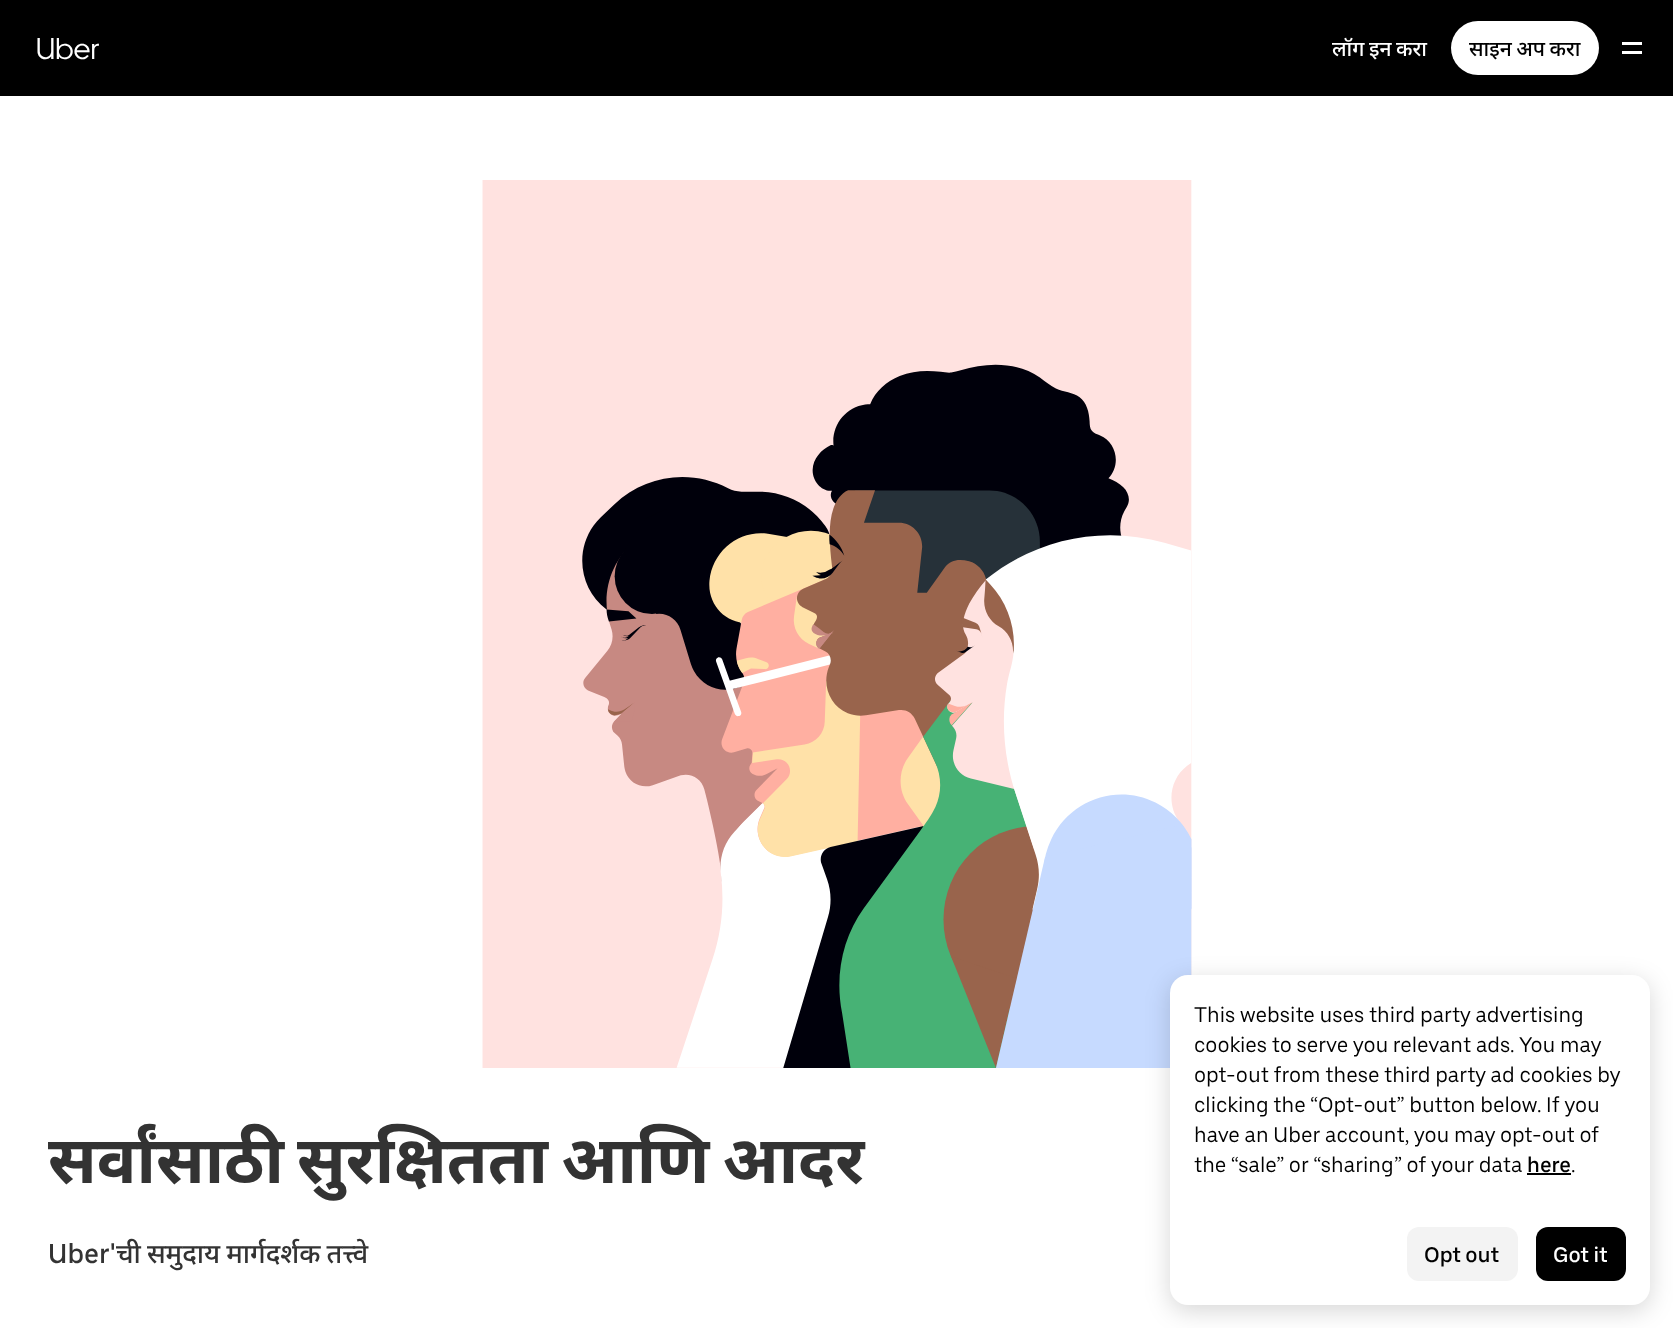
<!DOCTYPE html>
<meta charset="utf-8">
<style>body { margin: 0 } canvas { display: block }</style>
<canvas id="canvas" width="1673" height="1328"></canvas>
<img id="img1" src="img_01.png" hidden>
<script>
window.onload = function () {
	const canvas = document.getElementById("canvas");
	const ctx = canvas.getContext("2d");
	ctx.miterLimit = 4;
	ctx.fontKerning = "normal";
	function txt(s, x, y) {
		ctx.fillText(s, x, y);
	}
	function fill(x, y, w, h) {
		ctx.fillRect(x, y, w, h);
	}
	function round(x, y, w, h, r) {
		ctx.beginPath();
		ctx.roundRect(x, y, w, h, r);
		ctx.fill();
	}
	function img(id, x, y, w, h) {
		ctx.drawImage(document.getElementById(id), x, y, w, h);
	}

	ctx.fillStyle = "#FFFFFF";
	fill(0, 0, 1673, 1328);
	ctx.fillStyle = "#000000";
	fill(0, 0, 1673, 96);
	ctx.fillStyle = "#FFFFFF";
	round(1451, 21, 148, 54, 27);
	fill(1622, 42, 20, 3);
	fill(1622, 51, 20, 3);
	img("img1", 482, 180, 710, 888);
	ctx.fillStyle = "rgba(0, 0, 0, 0.16)";
	ctx.filter = "blur(12px)";
	ctx.beginPath();
	ctx.roundRect(1170, 981, 480, 330, 18);
	ctx.fill();
	ctx.filter = "none";
	ctx.fillStyle = "#FFFFFF";
	round(1170, 975, 480, 330, 18);
	ctx.fillStyle = "#000000";
	fill(1527, 1173, 44, 2);
	ctx.fillStyle = "#F3F3F3";
	round(1407, 1227, 111, 54, 12);
	ctx.fillStyle = "#000000";
	round(1536, 1227, 90, 54, 12);
	ctx.font = "30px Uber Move";
	ctx.fillStyle = "#FFFFFF";
	txt("Uber", 36, 59);
	ctx.wordSpacing = "-1px";
	ctx.font = "500 21px Noto Sans";
	txt("लॉग इन करा", 1332, 56);
	ctx.fillStyle = "#000000";
	txt("साइन अप करा", 1469, 56);
	ctx.wordSpacing = "-4px";
	ctx.font = "bold 66px Noto Sans";
	ctx.fillStyle = "#333333";
	txt("सर्वांसाठी सुरक्षितता आणि आदर", 48, 1183);
	ctx.wordSpacing = "0px";
	ctx.font = "500 27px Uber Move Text";
	txt("Uber'", 48, 1263);
	ctx.wordSpacing = "-1px";
	ctx.font = "500 27px Noto Sans";
	txt("ची समुदाय मार्गदर्शक तत्त्वे", 116, 1263);
	ctx.wordSpacing = "0px";
	ctx.font = "21px Uber Move Text";
	ctx.fillStyle = "#000000";
	txt("This website uses third party advertising", 1194, 1022);
	txt("cookies to serve you relevant ads. You may", 1194, 1052);
	txt("opt-out from these third party ad cookies by", 1194, 1082);
	txt("clicking the “Opt-out” button below. If you", 1194, 1112);
	txt("have an Uber account, you may opt-out of", 1194, 1142);
	txt("the “sale” or “sharing” of your data", 1194, 1172);
	ctx.font = "500 21px Uber Move Text";
	txt("here", 1527, 1172);
	ctx.font = "21px Uber Move Text";
	txt(".", 1571, 1172);
	ctx.font = "500 21px Uber Move Text";
	txt("Opt out", 1424, 1262);
	ctx.fillStyle = "#FFFFFF";
	txt("Got it", 1553, 1262);
};
</script>
